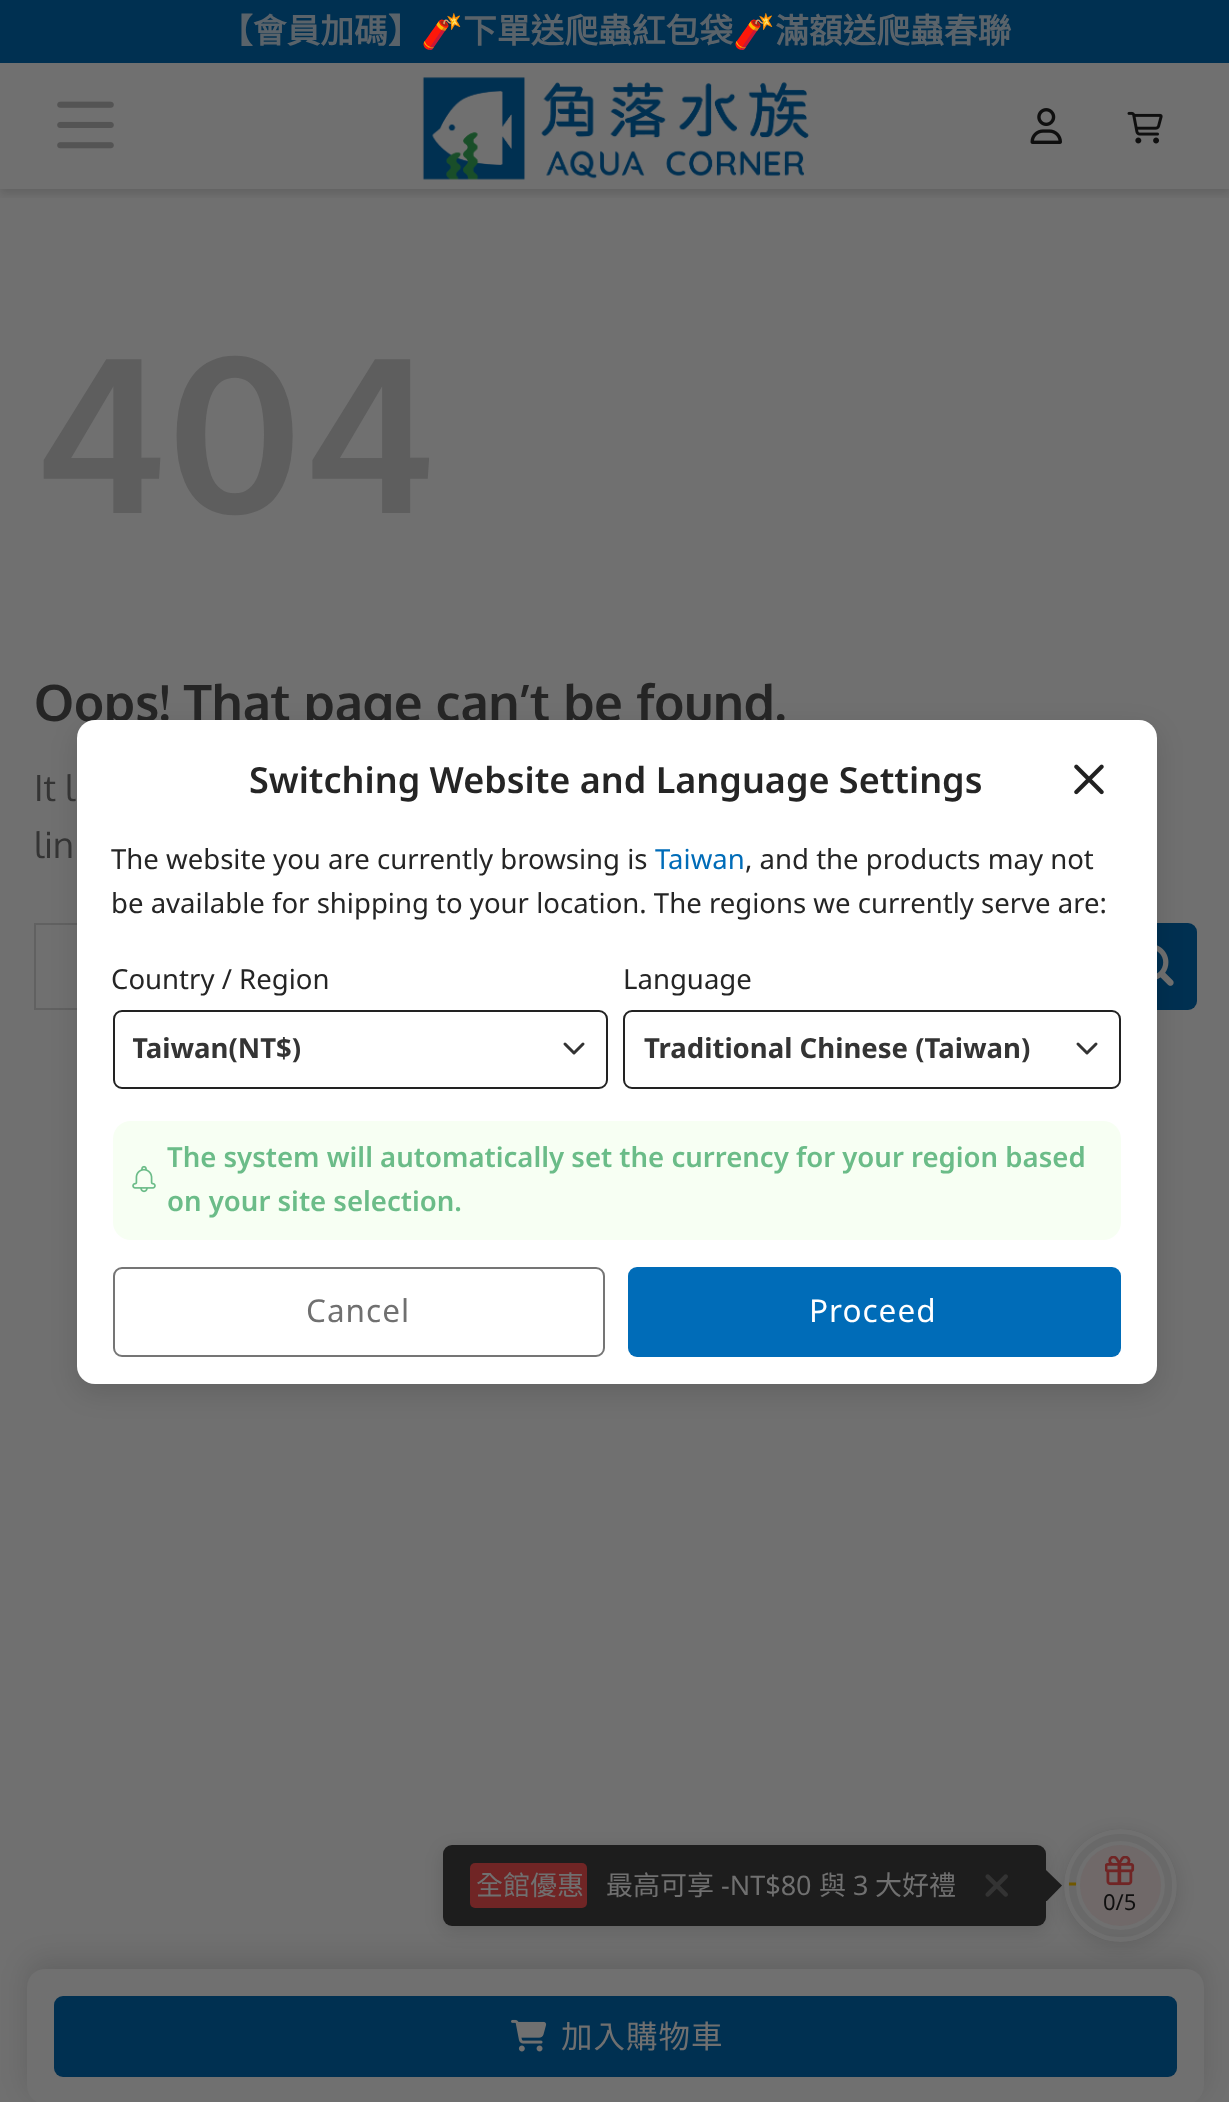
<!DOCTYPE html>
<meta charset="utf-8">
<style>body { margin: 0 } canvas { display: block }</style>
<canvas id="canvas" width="1229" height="2102"></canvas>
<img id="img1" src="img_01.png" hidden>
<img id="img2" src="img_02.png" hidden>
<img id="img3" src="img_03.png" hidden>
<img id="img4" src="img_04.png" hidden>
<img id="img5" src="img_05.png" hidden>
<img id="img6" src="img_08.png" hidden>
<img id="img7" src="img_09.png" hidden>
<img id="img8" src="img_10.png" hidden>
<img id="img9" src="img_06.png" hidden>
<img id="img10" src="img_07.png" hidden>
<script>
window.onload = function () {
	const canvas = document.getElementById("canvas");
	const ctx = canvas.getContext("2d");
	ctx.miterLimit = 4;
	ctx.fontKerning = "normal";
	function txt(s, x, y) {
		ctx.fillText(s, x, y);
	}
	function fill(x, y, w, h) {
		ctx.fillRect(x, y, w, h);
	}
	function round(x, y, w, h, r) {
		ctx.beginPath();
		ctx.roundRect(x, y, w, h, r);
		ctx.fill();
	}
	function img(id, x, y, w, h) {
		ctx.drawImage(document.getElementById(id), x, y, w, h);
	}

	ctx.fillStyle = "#707070";
	fill(0, 0, 1229, 2102);
	ctx.save();
	ctx.beginPath();
	ctx.rect(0, 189, 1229, 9);
	ctx.clip();
	ctx.fillStyle = "rgba(0, 0, 0, 0.12)";
	ctx.filter = "blur(4.5px)";
	ctx.beginPath();
	ctx.rect(0, 68, 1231, 126);
	ctx.fill();
	ctx.filter = "none";
	ctx.restore();
	ctx.fillStyle = "#003051";
	fill(0, 0, 1229, 63);
	img("img1", 57, 101, 57, 48);
	img("img2", 422, 77, 387, 103);
	img("img3", 1030, 108, 32, 36);
	img("img4", 1127, 111, 36, 33);
	ctx.strokeStyle = "#616161";
	ctx.lineWidth = 2;
	ctx.strokeRect(35, 924, 1073, 85);
	round(1109, 923, 88, 87, 9);
	img("img5", 1157, 945, 17, 41);
	ctx.fillStyle = "rgba(0, 0, 0, 0.12)";
	ctx.filter = "blur(13.5px)";
	ctx.beginPath();
	ctx.roundRect(77, 729, 1080, 664, 18);
	ctx.fill();
	ctx.filter = "none";
	ctx.filter = "blur(9px)";
	ctx.beginPath();
	ctx.roundRect(1064, 1834, 113, 112, 56);
	ctx.fill();
	ctx.filter = "none";
	ctx.save();
	ctx.beginPath();
	ctx.roundRect(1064, 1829, 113, 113, 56.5);
	ctx.clip();
	ctx.fillStyle = "rgba(0, 0, 0, 0.2)";
	ctx.filter = "blur(9px)";
	ctx.beginPath();
	ctx.roundRect(1064, 1829, 113, 113, 56.5);
	ctx.fill();
	ctx.filter = "none";
	ctx.restore();
	ctx.fillStyle = "#707070";
	ctx.beginPath();
	ctx.arc(1120.5, 1885.5, 56.5, 0, Math.PI * 2);
	ctx.fill();
	ctx.beginPath();
	ctx.moveTo(1072.5, 1885.5);
	ctx.bezierCurveTo(1072.5, 1859, 1094, 1837.5, 1120.5, 1837.5);
	ctx.bezierCurveTo(1147, 1837.5, 1168.5, 1859, 1168.5, 1885.5);
	ctx.bezierCurveTo(1168.5, 1912, 1147, 1933.5, 1120.5, 1933.5);
	ctx.bezierCurveTo(1094, 1933.5, 1072.5, 1912, 1072.5, 1885.5);
	ctx.strokeStyle = "#696969";
	ctx.lineWidth = 7.1;
	ctx.stroke();
	ctx.beginPath();
	ctx.moveTo(1072.5, 1885.5);
	ctx.lineTo(1072.5, 1882.5);
	ctx.strokeStyle = "#705800";
	ctx.stroke();
	ctx.fillStyle = "rgba(0, 0, 0, 0.12)";
	ctx.filter = "blur(9px)";
	ctx.beginPath();
	ctx.roundRect(443, 1850, 603, 81, 9);
	ctx.fill();
	ctx.filter = "none";
	ctx.fillStyle = "#1D1D1D";
	round(443, 1845, 603, 81, 9);
	ctx.fillStyle = "#702525";
	round(470, 1863, 117, 45, 5);
	img("img6", 985, 1874, 23, 23);
	ctx.save();
	ctx.beginPath();
	ctx.rect(1046, 1870, 23, 31);
	ctx.clip();
	ctx.fillStyle = "#1D1D1D";
	ctx.beginPath();
	ctx.moveTo(1046, 1870);
	ctx.lineTo(1062, 1885.5);
	ctx.lineTo(1040, 1908);
	ctx.lineTo(1024, 1892);
	ctx.closePath();
	ctx.fill();
	ctx.restore();
	ctx.fillStyle = "#706969";
	ctx.beginPath();
	ctx.arc(1120.5, 1885.5, 40.5, 0, Math.PI * 2);
	ctx.fill();
	img("img7", 1105, 1856, 30, 30);
	ctx.fillStyle = "rgba(0, 0, 0, 0.12)";
	ctx.filter = "blur(13.5px)";
	ctx.beginPath();
	ctx.roundRect(27, 1960, 1177, 135, 18);
	ctx.fill();
	ctx.filter = "none";
	ctx.fillStyle = "#707070";
	round(27, 1969, 1177, 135, 18);
	ctx.fillStyle = "#003051";
	round(54, 1996, 1123, 81, 9);
	img("img8", 511, 2019, 36, 33);
	ctx.font = "bold 33.75px Noto Sans CJK TC";
	ctx.fillStyle = "#5A636A";
	txt("【會員加碼】", 219, 43);
	ctx.font = "bold 33.75px Noto Color Emoji";
	txt("🧨", 421, 43);
	ctx.font = "bold 33.75px Noto Sans CJK TC";
	txt("下單送爬蟲紅包袋", 463, 43);
	ctx.font = "bold 33.75px Noto Color Emoji";
	txt("🧨", 733, 43);
	ctx.font = "bold 33.75px Noto Sans CJK TC";
	txt("滿額送爬蟲春聯", 775, 43);
	ctx.font = "bold 216px Oxygen";
	ctx.fillStyle = "#5E5E5E";
	txt("404", 34, 513);
	ctx.font = "bold 50.4px Oxygen";
	ctx.fillStyle = "#252525";
	txt("Oops! That page can’t be found.", 34, 721);
	ctx.font = "36px Oxygen";
	ctx.fillStyle = "#343434";
	txt("It l", 34, 801);
	txt("lin", 34, 858);
	ctx.fillStyle = "#FFFFFF";
	round(77, 720, 1080, 664, 18);
	ctx.font = "600 36px Noto Sans";
	ctx.fillStyle = "#252525";
	txt("Switching Website and Language Settings", 249, 793);
	img("img9", 1074, 764, 30, 31);
	ctx.font = "27.55px Noto Sans";
	txt("The website you are currently browsing is", 111, 869);
	ctx.fillStyle = "#006CB8";
	txt("Taiwan", 655, 869);
	ctx.fillStyle = "#252525";
	txt(", and the products may not", 745, 869);
	txt("be available for shipping to your location. The regions we currently serve are:", 111, 913);
	txt("Country / Region", 111, 989);
	ctx.beginPath();
	ctx.moveTo(565, 1044);
	ctx.lineTo(574, 1053);
	ctx.lineTo(583, 1044);
	ctx.strokeStyle = "#333333";
	ctx.lineWidth = 3;
	ctx.lineCap = "round";
	ctx.lineJoin = "round";
	ctx.stroke();
	ctx.beginPath();
	ctx.roundRect(114, 1011, 493, 77, 8);
	ctx.strokeStyle = "#222222";
	ctx.lineWidth = 2;
	ctx.lineJoin = "miter";
	ctx.stroke();
	ctx.save();
	ctx.beginPath();
	ctx.rect(133, 1026, 436, 45);
	ctx.clip();
	ctx.font = "bold 27.55px Noto Sans";
	ctx.fillStyle = "#343434";
	txt("Taiwan(NT$)", 132, 1058);
	ctx.restore();
	txt("Language", 623, 989);
	ctx.beginPath();
	ctx.moveTo(1078, 1044);
	ctx.lineTo(1087, 1053);
	ctx.lineTo(1096, 1044);
	ctx.strokeStyle = "#333333";
	ctx.lineWidth = 3;
	ctx.lineJoin = "round";
	ctx.stroke();
	ctx.beginPath();
	ctx.roundRect(624, 1011, 496, 77, 8);
	ctx.strokeStyle = "#222222";
	ctx.lineWidth = 2;
	ctx.lineJoin = "miter";
	ctx.stroke();
	ctx.font = "bold 27.55px Noto Sans";
	ctx.fillStyle = "#343434";
	txt("Traditional Chinese (Taiwan)", 644, 1058);
	ctx.fillStyle = "#F7FFF3";
	round(113, 1121, 1008, 119, 18);
	ctx.font = "600 27.55px Noto Sans";
	ctx.fillStyle = "#6BBC88";
	txt("The system will automatically set the currency for your region based", 167, 1167);
	img("img10", 132, 1165, 24, 28);
	txt("on your site selection.", 167, 1211);
	ctx.beginPath();
	ctx.roundRect(114, 1268, 490, 88, 8);
	ctx.strokeStyle = "#757575";
	ctx.stroke();
	ctx.letterSpacing = "1px";
	ctx.font = "31.5px Noto Sans";
	ctx.fillStyle = "#707070";
	txt("Cancel", 306, 1322);
	ctx.fillStyle = "#006CB8";
	round(628, 1267, 493, 90, 9);
	ctx.fillStyle = "#FFFFFF";
	txt("Proceed", 809, 1322);
	ctx.letterSpacing = "0px";
	ctx.font = "27px Noto Sans CJK TC";
	ctx.fillStyle = "#707070";
	txt("全館優惠", 476, 1895);
	txt("最高可享", 606, 1895);
	ctx.font = "27px Noto Sans";
	txt("-NT$80", 721, 1895);
	ctx.font = "27px Noto Sans CJK TC";
	txt("與", 819, 1895);
	ctx.font = "27px Noto Sans";
	txt("3", 853, 1895);
	ctx.font = "27px Noto Sans CJK TC";
	txt("大好禮", 875, 1895);
	ctx.font = "22px Noto Sans";
	ctx.fillStyle = "#0F0F0F";
	txt("0/5", 1103, 1910);
	ctx.letterSpacing = "1px";
	ctx.font = "31.5px Noto Sans CJK TC";
	ctx.fillStyle = "#707070";
	txt("加入購物車", 561, 2048);
};
</script>
